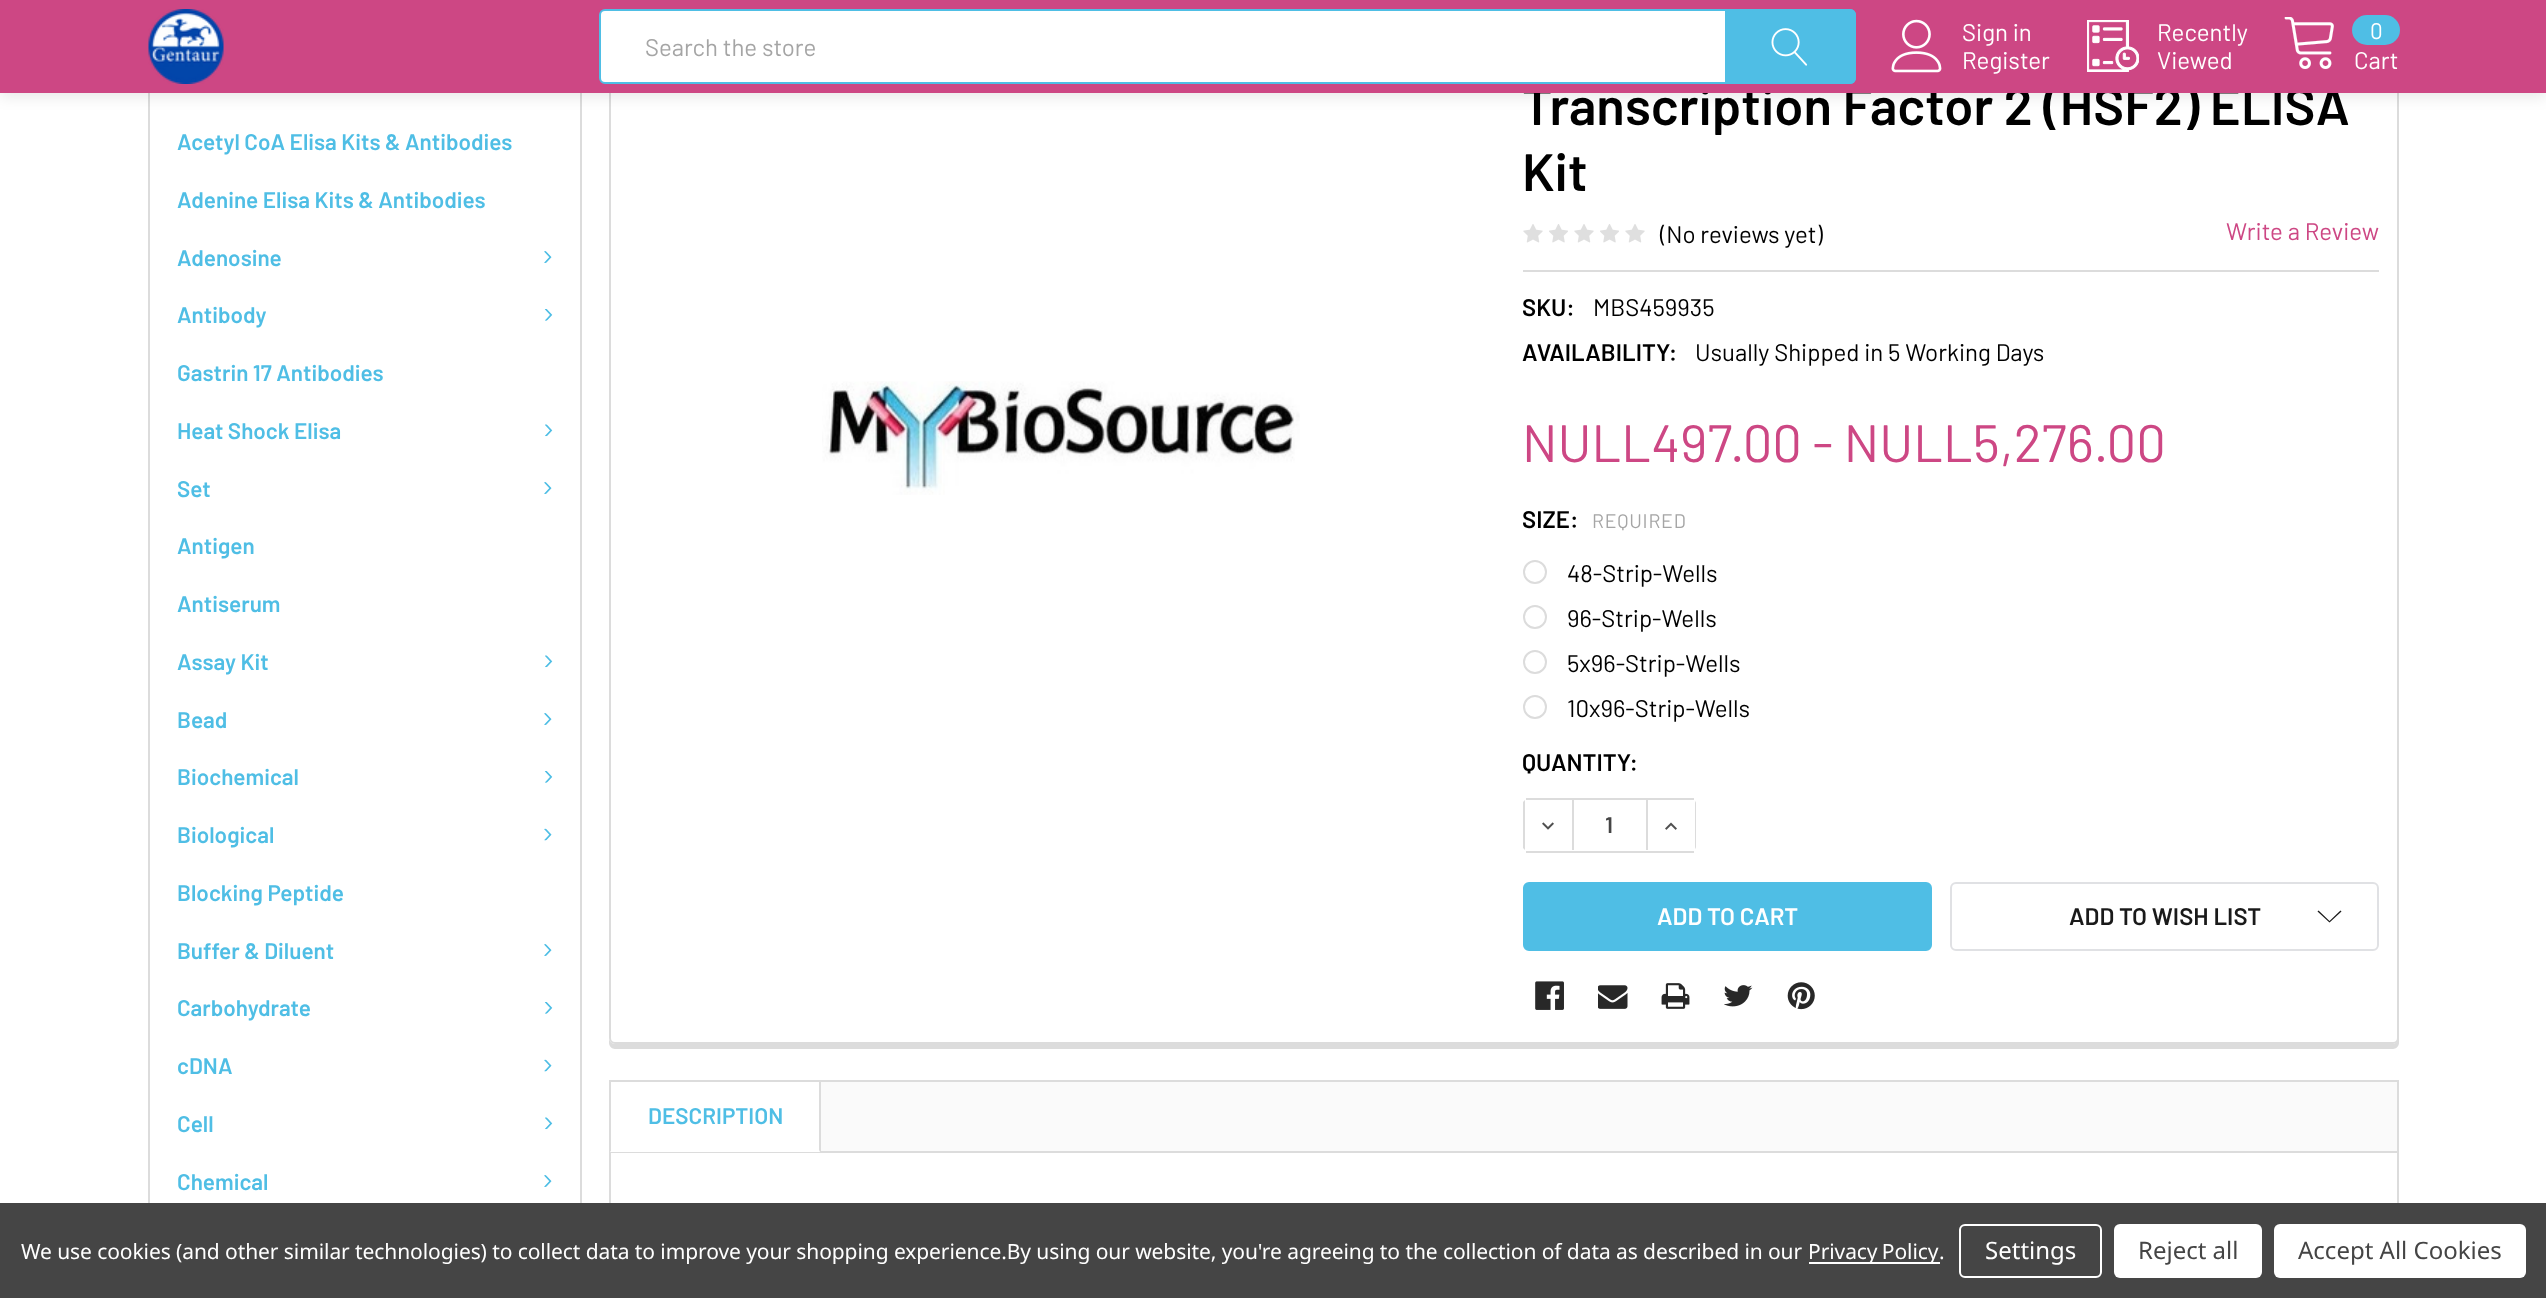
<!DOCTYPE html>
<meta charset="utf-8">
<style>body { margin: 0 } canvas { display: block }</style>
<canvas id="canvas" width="2546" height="1298"></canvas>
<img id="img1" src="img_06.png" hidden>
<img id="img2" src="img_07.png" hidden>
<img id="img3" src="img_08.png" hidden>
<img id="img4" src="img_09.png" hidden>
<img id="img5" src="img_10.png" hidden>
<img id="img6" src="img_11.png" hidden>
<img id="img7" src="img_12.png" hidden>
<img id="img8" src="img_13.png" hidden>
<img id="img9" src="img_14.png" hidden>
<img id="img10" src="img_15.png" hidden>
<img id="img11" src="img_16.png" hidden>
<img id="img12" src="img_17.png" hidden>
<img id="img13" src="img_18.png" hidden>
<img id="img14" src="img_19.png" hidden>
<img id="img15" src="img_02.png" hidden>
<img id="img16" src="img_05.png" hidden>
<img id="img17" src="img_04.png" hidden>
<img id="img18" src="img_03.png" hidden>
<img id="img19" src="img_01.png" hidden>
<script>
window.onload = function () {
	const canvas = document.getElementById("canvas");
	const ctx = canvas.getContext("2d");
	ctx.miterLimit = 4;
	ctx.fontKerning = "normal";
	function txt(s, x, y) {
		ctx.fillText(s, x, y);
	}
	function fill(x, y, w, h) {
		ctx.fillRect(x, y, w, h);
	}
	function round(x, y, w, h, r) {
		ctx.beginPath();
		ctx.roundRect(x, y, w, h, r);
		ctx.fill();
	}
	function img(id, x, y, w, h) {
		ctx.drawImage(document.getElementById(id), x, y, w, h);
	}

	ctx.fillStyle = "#FFFFFF";
	fill(0, 0, 2546, 1298);
	ctx.fillStyle = "#DCDCDC";
	ctx.beginPath();
	ctx.moveTo(148, -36);
	ctx.lineTo(582, -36);
	ctx.lineTo(582, 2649);
	ctx.bezierCurveTo(582, 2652, 579, 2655, 576, 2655);
	ctx.lineTo(154, 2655);
	ctx.bezierCurveTo(151, 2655, 148, 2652, 148, 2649);
	ctx.closePath();
	ctx.moveTo(150, -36);
	ctx.lineTo(580, -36);
	ctx.lineTo(580, 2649);
	ctx.bezierCurveTo(580, 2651, 578, 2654, 576, 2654);
	ctx.lineTo(154, 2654);
	ctx.bezierCurveTo(152, 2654, 150, 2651, 150, 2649);
	ctx.closePath();
	ctx.fill("evenodd");
	ctx.beginPath();
	ctx.moveTo(609, 1038);
	ctx.lineTo(609, 1043);
	ctx.bezierCurveTo(609, 1046, 612, 1049, 615, 1049);
	ctx.lineTo(2393, 1049);
	ctx.bezierCurveTo(2396, 1049, 2399, 1046, 2399, 1043);
	ctx.lineTo(2399, -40);
	ctx.lineTo(2398, -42);
	ctx.lineTo(2398, 1038);
	ctx.bezierCurveTo(2398, 1041, 2396, 1044, 2392, 1044);
	ctx.lineTo(615, 1044);
	ctx.bezierCurveTo(612, 1044, 609, 1041, 609, 1038);
	ctx.closePath();
	ctx.fill();
	ctx.fillStyle = "#FFFFFF";
	ctx.beginPath();
	ctx.roundRect(610, -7, 1788, 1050, 5);
	ctx.fill();
	ctx.strokeStyle = "#DCDCDC";
	ctx.lineWidth = 2;
	ctx.stroke();
	ctx.fillStyle = "rgba(0, 0, 0, 0.1)";
	ctx.filter = "blur(7.5px)";
	ctx.beginPath();
	ctx.rect(0, 3, 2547, 93);
	ctx.fill();
	ctx.filter = "none";
	img("img1", 544, 251, 8, 12);
	img("img2", 544, 309, 9, 12);
	img("img3", 545, 424, 8, 13);
	img("img1", 544, 482, 8, 12);
	img("img3", 545, 655, 8, 13);
	img("img1", 544, 713, 8, 12);
	img("img2", 544, 771, 9, 12);
	img("img4", 544, 828, 8, 13);
	img("img1", 544, 944, 8, 12);
	img("img2", 544, 1002, 9, 12);
	img("img4", 544, 1059, 8, 13);
	img("img3", 545, 1117, 8, 13);
	img("img1", 544, 1175, 8, 12);
	img("img5", 1523, 224, 20, 19);
	img("img6", 1549, 224, 19, 19);
	img("img5", 1574, 224, 20, 19);
	img("img6", 1600, 224, 19, 19);
	img("img5", 1625, 224, 20, 19);
	ctx.fillStyle = "#DCDCDC";
	fill(1523, 270, 856, 2);
	img("img7", 822, 381, 478, 114);
	ctx.beginPath();
	ctx.arc(1535, 572, 11, 0, Math.PI * 2);
	ctx.stroke();
	ctx.beginPath();
	ctx.arc(1535, 617, 11, 0, Math.PI * 2);
	ctx.stroke();
	ctx.beginPath();
	ctx.arc(1535, 662, 11, 0, Math.PI * 2);
	ctx.stroke();
	ctx.beginPath();
	ctx.arc(1535, 707, 11, 0, Math.PI * 2);
	ctx.stroke();
	fill(1526, 798, 168, 2);
	fill(1526, 851, 168, 2);
	fill(1572, 800, 2, 50);
	ctx.beginPath();
	ctx.moveTo(1523, 802);
	ctx.lineTo(1525, 800);
	ctx.lineTo(1525, 850);
	ctx.lineTo(1523, 848);
	ctx.closePath();
	ctx.fill();
	img("img8", 1542, 822, 12, 8);
	ctx.beginPath();
	ctx.moveTo(1695, 801);
	ctx.bezierCurveTo(1696, 802, 1696, 803, 1696, 804);
	ctx.lineTo(1696, 846);
	ctx.bezierCurveTo(1696, 847, 1696, 848, 1695, 849);
	ctx.closePath();
	ctx.fill();
	fill(1646, 800, 2, 50);
	img("img9", 1665, 822, 12, 8);
	ctx.fillStyle = "#4FBEE5";
	ctx.beginPath();
	ctx.roundRect(1524, 883, 407, 67, 5);
	ctx.fill();
	ctx.strokeStyle = "#4FBEE5";
	ctx.stroke();
	ctx.beginPath();
	ctx.roundRect(1951, 883, 427, 67, 5);
	ctx.strokeStyle = "#E0E1E4";
	ctx.stroke();
	ctx.fillStyle = "#1A1A1A";
	ctx.beginPath();
	ctx.moveTo(2329.5, 921);
	ctx.lineTo(2340.5, 910.5);
	ctx.lineTo(2341.5, 911.5);
	ctx.lineTo(2329.5, 922.5);
	ctx.lineTo(2317.5, 911.5);
	ctx.lineTo(2318.5, 910.5);
	ctx.closePath();
	ctx.fill("evenodd");
	img("img10", 1535, 981, 29, 29);
	img("img11", 1598, 985, 30, 24);
	img("img12", 1661, 983, 29, 26);
	img("img13", 1724, 985, 29, 22);
	img("img14", 1787, 982, 28, 28);
	ctx.strokeStyle = "#DCDCDC";
	ctx.strokeRect(610, 1081, 1788, 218);
	ctx.fillStyle = "#FAFAFA";
	fill(821, 1082, 1576, 69);
	ctx.fillStyle = "#DCDCDC";
	fill(611, 1151, 1786, 2);
	fill(819, 1082, 2, 70);
	ctx.fillStyle = "#FFFFFF";
	ctx.beginPath();
	ctx.moveTo(820, 1152);
	ctx.lineTo(610, 1152);
	ctx.lineTo(612, 1150);
	ctx.lineTo(819, 1150);
	ctx.closePath();
	ctx.fill();
	ctx.fillStyle = "#454545";
	fill(0, 1203, 2546, 95);
	ctx.fillStyle = "#FFFFFF";
	fill(1809, 1262, 131, 2);
	ctx.beginPath();
	ctx.roundRect(1960, 1225, 141, 52, 5);
	ctx.strokeStyle = "#FFFFFF";
	ctx.stroke();
	round(2114, 1224, 148, 54, 6);
	round(2274, 1224, 252, 54, 6);
	ctx.font = "600 22.5px Barlow";
	ctx.fillStyle = "#4FBEE5";
	txt("Acetyl CoA Elisa Kits & Antibodies", 177, 150);
	txt("Adenine Elisa Kits & Antibodies", 177, 208);
	txt("Adenosine", 177, 266);
	txt("Antibody", 177, 323);
	txt("Gastrin 17 Antibodies", 177, 381);
	txt("Heat Shock Elisa", 177, 439);
	txt("Set", 177, 497);
	txt("Antigen", 177, 554);
	txt("Antiserum", 177, 612);
	txt("Assay Kit", 177, 670);
	txt("Bead", 177, 728);
	txt("Biochemical", 177, 785);
	txt("Biological", 177, 843);
	txt("Blocking Peptide", 177, 901);
	txt("Buffer & Diluent", 177, 959);
	txt("Carbohydrate", 177, 1016);
	txt("cDNA", 177, 1074);
	txt("Cell", 177, 1132);
	txt("Chemical", 177, 1190);
	ctx.font = "600 52.5px Barlow";
	ctx.fillStyle = "#000000";
	txt("Transcription Factor 2 (HSF2) ELISA", 1522, 125);
	ctx.fillStyle = "#CD4784";
	fill(0, 0, 2546, 93);
	ctx.fillStyle = "#FFFFFF";
	ctx.beginPath();
	ctx.roundRect(600, 10, 1255, 73, 5);
	ctx.fill();
	ctx.strokeStyle = "#4FBEE5";
	ctx.stroke();
	ctx.fillStyle = "#4FBEE5";
	ctx.beginPath();
	ctx.roundRect(1725, 9, 131, 75, [0, 6, 6, 0]);
	ctx.fill();
	img("img15", 1771, 28, 37, 38);
	ctx.font = "24px Barlow";
	ctx.fillStyle = "#A5A5A5";
	txt("Search the store", 645, 56);
	ctx.fillStyle = "#4FBEE5";
	round(2352, 15, 48, 30, 15);
	ctx.font = "22.5px Barlow";
	ctx.fillStyle = "#FFFFFF";
	txt("0", 2370, 39);
	img("img16", 2284, 17, 50, 52);
	ctx.font = "24px Barlow";
	txt("Cart", 2354, 69);
	img("img17", 2087, 20, 52, 52);
	txt("Viewed", 2157, 69);
	txt("Recently", 2157, 41);
	txt("Register", 1962, 69);
	txt("Sign in", 1962, 41);
	img("img18", 1891, 19, 51, 54);
	img("img19", 148, 9, 76, 75);
	ctx.font = "600 52.5px Barlow";
	ctx.fillStyle = "#000000";
	txt("Kit", 1522, 191);
	ctx.font = "24px Barlow";
	txt("(No reviews yet)", 1660, 243);
	ctx.fillStyle = "#CD4784";
	txt("Write a Review", 2226, 240);
	ctx.font = "600 24px Barlow";
	ctx.fillStyle = "#000000";
	txt("SKU:", 1522, 316);
	ctx.font = "24px Barlow";
	txt("MBS459935", 1593, 316);
	ctx.font = "600 24px Barlow";
	txt("AVAILABILITY:", 1522, 361);
	ctx.font = "24px Barlow";
	txt("Usually Shipped in 5 Working Days", 1695, 361);
	ctx.font = "52.5px Barlow";
	ctx.fillStyle = "#CD4784";
	txt("NULL497.00 - NULL5,276.00", 1522, 462);
	ctx.font = "600 24px Barlow";
	ctx.fillStyle = "#000000";
	txt("SIZE:", 1522, 528);
	ctx.letterSpacing = "0.75px";
	ctx.font = "19.5px Barlow";
	ctx.fillStyle = "#A5A5A5";
	txt("REQUIRED", 1592, 528);
	ctx.letterSpacing = "0px";
	ctx.font = "24px Barlow";
	ctx.fillStyle = "#000000";
	txt("48-Strip-Wells", 1567, 582);
	txt("96-Strip-Wells", 1567, 627);
	txt("5x96-Strip-Wells", 1567, 672);
	txt("10x96-Strip-Wells", 1567, 717);
	ctx.font = "600 24px Barlow";
	txt("QUANTITY:", 1522, 771);
	ctx.font = "600 22.5px Barlow";
	ctx.fillStyle = "#454545";
	txt("1", 1605, 833);
	ctx.font = "600 24px Barlow";
	ctx.fillStyle = "#FFFFFF";
	txt("ADD TO CART", 1657, 925);
	ctx.fillStyle = "#1A1A1A";
	txt("ADD TO WISH LIST", 2069, 925);
	ctx.font = "600 22.5px Barlow";
	ctx.fillStyle = "#4FBEE5";
	txt("DESCRIPTION", 648, 1124);
	ctx.letterSpacing = "-0.08px";
	ctx.font = "21px Noto Sans";
	ctx.fillStyle = "#FFFFFF";
	txt("We use cookies (and other similar technologies) to collect data to improve your shopping experience.By using our website, you're agreeing to the collection of data as described in our", 21, 1259);
	ctx.wordSpacing = "-1px";
	txt("Privacy Policy", 1808, 1259);
	ctx.wordSpacing = "0px";
	txt(".", 1939, 1259);
	ctx.letterSpacing = "0px";
	ctx.font = "24px Noto Sans";
	txt("Settings", 1985, 1259);
	ctx.fillStyle = "#454545";
	txt("Reject all", 2138, 1259);
	txt("Accept All Cookies", 2298, 1259);
};
</script>
